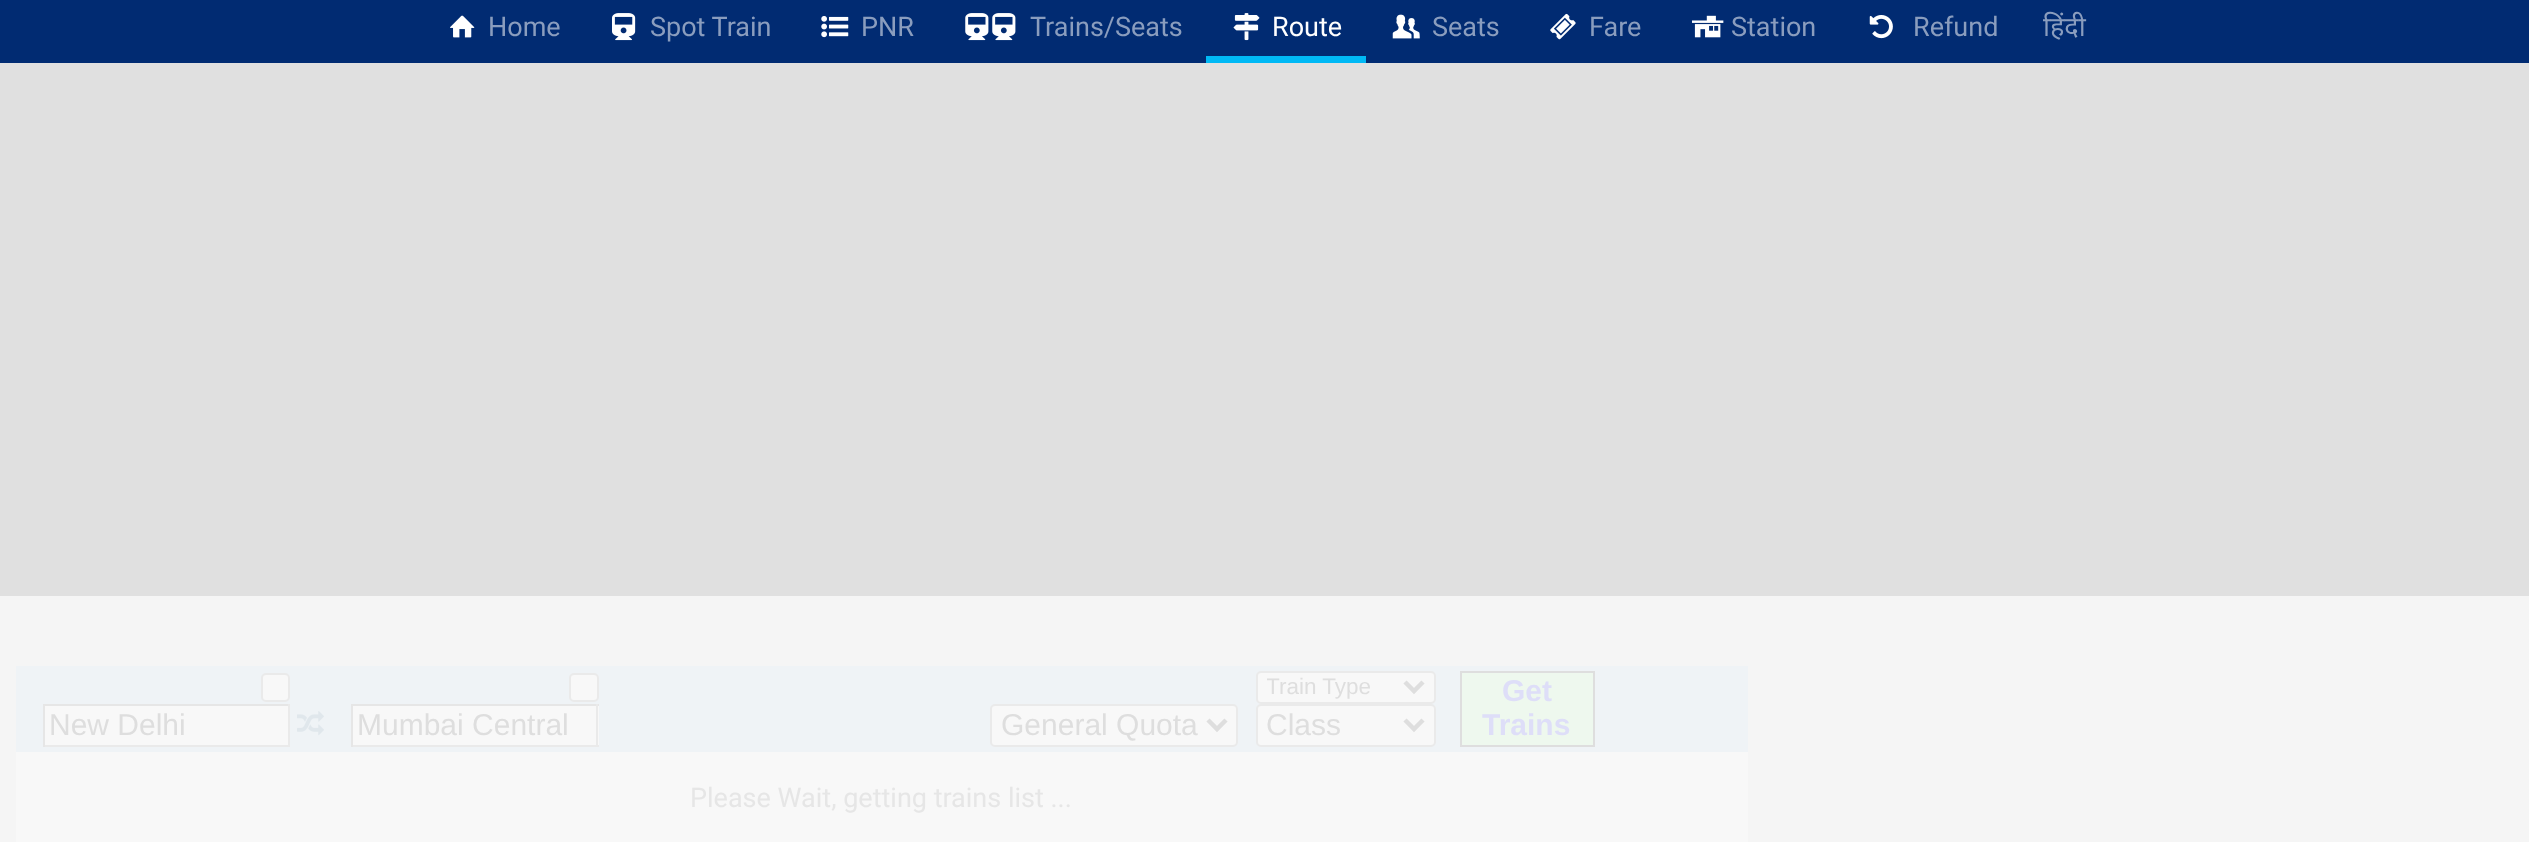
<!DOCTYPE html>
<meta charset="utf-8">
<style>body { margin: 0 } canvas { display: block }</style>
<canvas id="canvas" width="2529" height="842"></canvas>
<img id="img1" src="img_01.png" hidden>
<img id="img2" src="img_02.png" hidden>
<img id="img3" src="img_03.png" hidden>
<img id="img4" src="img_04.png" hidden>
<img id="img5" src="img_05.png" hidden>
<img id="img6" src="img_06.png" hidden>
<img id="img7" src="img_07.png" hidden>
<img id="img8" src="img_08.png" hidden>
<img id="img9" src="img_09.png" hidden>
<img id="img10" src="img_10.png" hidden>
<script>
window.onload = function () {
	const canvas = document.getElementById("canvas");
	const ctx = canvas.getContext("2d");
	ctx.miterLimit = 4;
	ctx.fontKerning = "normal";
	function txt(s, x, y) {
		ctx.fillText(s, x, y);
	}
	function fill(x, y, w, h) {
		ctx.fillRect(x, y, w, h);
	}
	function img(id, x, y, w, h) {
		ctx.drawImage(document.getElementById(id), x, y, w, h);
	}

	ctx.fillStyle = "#E0E0E0";
	fill(0, 0, 2529, 842);
	ctx.fillStyle = "#F5F5F5";
	fill(0, 596, 2529, 246);
	ctx.fillStyle = "#012B72";
	fill(0, 0, 2529, 63);
	img("img1", 450, 15, 25, 23);
	img("img2", 612, 13, 24, 28);
	img("img3", 821, 16, 28, 22);
	img("img4", 965, 13, 24, 28);
	img("img4", 992, 13, 24, 28);
	ctx.fillStyle = "#00B9F5";
	fill(1206, 56, 160, 7);
	img("img5", 1233, 13, 27, 28);
	img("img6", 1392, 14, 28, 25);
	img("img7", 1550, 13, 26, 27);
	img("img8", 1692, 15, 32, 23);
	img("img9", 1869, 15, 24, 24);
	ctx.fillStyle = "#F8F8F8";
	fill(16, 752, 1732, 90);
	ctx.fillStyle = "#EFF3F6";
	fill(16, 666, 1732, 86);
	ctx.fillStyle = "#F8F8F8";
	fill(45, 706, 243, 39);
	ctx.fillStyle = "#E6E6E6";
	fill(43, 704, 247, 2);
	ctx.fillStyle = "#EAEAEA";
	fill(288, 704, 2, 43);
	fill(43, 745, 247, 2);
	ctx.fillStyle = "#E6E6E6";
	fill(43, 704, 2, 43);
	img("img10", 297, 711, 27, 25);
	ctx.fillStyle = "#F8F8F8";
	fill(353, 706, 246, 39);
	ctx.fillStyle = "#E6E6E6";
	fill(351, 704, 248, 2);
	ctx.fillStyle = "#EAEAEA";
	fill(596, 704, 2, 43);
	fill(351, 745, 248, 2);
	ctx.fillStyle = "#E6E6E6";
	fill(351, 704, 2, 43);
	ctx.fillStyle = "#F8F8F8";
	ctx.beginPath();
	ctx.roundRect(991, 705, 246, 41, 4);
	ctx.fill();
	ctx.strokeStyle = "#EAEAEA";
	ctx.lineWidth = 2;
	ctx.stroke();
	ctx.beginPath();
	ctx.moveTo(1208, 720);
	ctx.lineTo(1217, 729);
	ctx.lineTo(1226, 720);
	ctx.strokeStyle = "#DEDEDE";
	ctx.lineWidth = 4.5;
	ctx.stroke();
	ctx.beginPath();
	ctx.roundRect(1257, 705, 178, 41, 4);
	ctx.fill();
	ctx.strokeStyle = "#EAEAEA";
	ctx.lineWidth = 2;
	ctx.stroke();
	ctx.beginPath();
	ctx.moveTo(1405, 720);
	ctx.lineTo(1414, 729);
	ctx.lineTo(1423, 720);
	ctx.strokeStyle = "#DEDEDE";
	ctx.lineWidth = 4.5;
	ctx.stroke();
	ctx.beginPath();
	ctx.roundRect(262, 674, 27, 27, 4);
	ctx.fill();
	ctx.strokeStyle = "#EAEAEA";
	ctx.lineWidth = 2;
	ctx.stroke();
	ctx.beginPath();
	ctx.roundRect(570, 674, 28, 27, 4);
	ctx.fill();
	ctx.stroke();
	ctx.beginPath();
	ctx.roundRect(1257, 672, 178, 31, 4);
	ctx.fill();
	ctx.stroke();
	ctx.beginPath();
	ctx.moveTo(1405, 682);
	ctx.lineTo(1414, 691);
	ctx.lineTo(1423, 682);
	ctx.strokeStyle = "#DEDEDE";
	ctx.lineWidth = 4.5;
	ctx.stroke();
	ctx.fillStyle = "#EEF8EE";
	ctx.beginPath();
	ctx.rect(1461, 672, 133, 74);
	ctx.fill();
	ctx.lineWidth = 2;
	ctx.stroke();
	ctx.font = "27px Roboto";
	ctx.fillStyle = "#8A9DBE";
	txt("Home", 488, 36);
	txt("Spot Train", 650, 36);
	txt("PNR", 861, 36);
	txt("Trains/Seats", 1030, 36);
	ctx.fillStyle = "#FFFFFF";
	txt("Route", 1272, 36);
	ctx.fillStyle = "#8A9DBE";
	txt("Seats", 1432, 36);
	txt("Fare", 1589, 36);
	txt("Station", 1731, 36);
	txt("Refund", 1913, 36);
	ctx.font = "27px Noto Sans";
	txt("हिंदी", 2043, 36);
	ctx.font = "30px Liberation Sans";
	ctx.fillStyle = "#DEDEDE";
	txt("New Delhi", 49, 735);
	txt("Mumbai Central", 357, 735);
	txt("General Quota", 1001, 735);
	txt("Class", 1266, 735);
	ctx.save();
	ctx.beginPath();
	ctx.rect(1267, 673, 130, 29);
	ctx.clip();
	ctx.font = "22.5px Liberation Sans";
	txt("Train Type", 1266, 694);
	ctx.restore();
	ctx.font = "bold 30px Liberation Sans";
	ctx.fillStyle = "#DEDEF8";
	txt("Get", 1502, 701);
	txt("Trains", 1482, 735);
	ctx.font = "27px Roboto";
	ctx.fillStyle = "#E6E6E6";
	txt("Please Wait, getting trains list ...", 690, 807);
};
</script>
